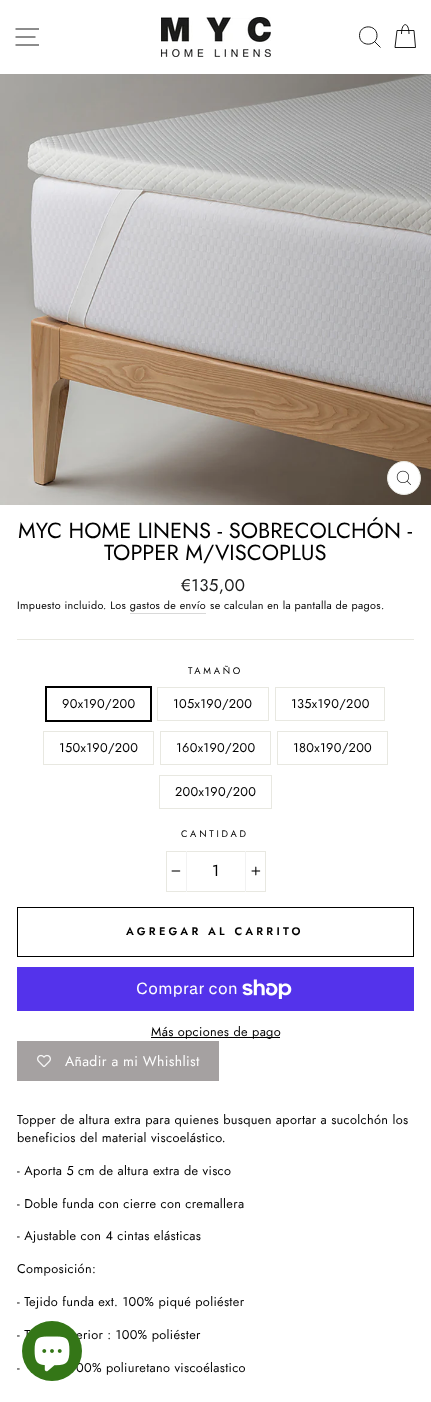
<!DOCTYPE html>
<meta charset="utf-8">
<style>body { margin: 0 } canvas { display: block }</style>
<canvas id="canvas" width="431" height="1402"></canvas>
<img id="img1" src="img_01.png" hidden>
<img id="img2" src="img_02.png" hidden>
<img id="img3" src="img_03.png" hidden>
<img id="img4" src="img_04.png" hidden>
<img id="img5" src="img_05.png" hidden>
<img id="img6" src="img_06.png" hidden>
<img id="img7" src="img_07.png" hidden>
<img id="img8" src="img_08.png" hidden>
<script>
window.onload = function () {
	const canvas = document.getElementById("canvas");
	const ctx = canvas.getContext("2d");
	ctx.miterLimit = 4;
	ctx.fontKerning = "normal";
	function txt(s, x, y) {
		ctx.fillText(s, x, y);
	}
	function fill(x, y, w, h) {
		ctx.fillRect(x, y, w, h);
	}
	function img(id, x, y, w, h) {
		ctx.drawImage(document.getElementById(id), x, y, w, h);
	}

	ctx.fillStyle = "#FFFFFF";
	fill(0, 0, 431, 1402);
	ctx.beginPath();
	ctx.moveTo(15.5, 29);
	ctx.lineTo(39, 29);
	ctx.moveTo(15.5, 37);
	ctx.lineTo(35.5, 37);
	ctx.moveTo(15.5, 45);
	ctx.lineTo(39, 45);
	ctx.strokeStyle = "#000000";
	ctx.lineWidth = 0.9;
	ctx.stroke();
	img("img1", 161, 17, 110, 40);
	ctx.beginPath();
	ctx.moveTo(377, 35.5);
	ctx.bezierCurveTo(377, 47, 359.5, 47, 359.5, 35.5);
	ctx.bezierCurveTo(359.5, 24, 377, 24, 377, 35.5);
	ctx.closePath();
	ctx.moveTo(380.5, 47.5);
	ctx.lineTo(374.5, 41.5);
	ctx.moveTo(401.5, 34);
	ctx.bezierCurveTo(401.5, 21.5, 409, 21.5, 409, 34);
	ctx.moveTo(397, 30.5);
	ctx.lineTo(414, 30.5);
	ctx.lineTo(415.5, 47.5);
	ctx.lineTo(395, 47.5);
	ctx.closePath();
	ctx.stroke();
	img("img2", 0, 74, 431, 431);
	ctx.beginPath();
	ctx.arc(404, 478, 16.5, 0, Math.PI * 2);
	ctx.fill();
	ctx.strokeStyle = "#E8E8E1";
	ctx.lineWidth = 1;
	ctx.stroke();
	img("img3", 396, 470, 15, 15);
	ctx.fillStyle = "#D9D9D9";
	fill(130, 613, 76, 1);
	ctx.fillStyle = "#E8E8E1";
	fill(17, 639, 397, 1);
	ctx.strokeStyle = "#000000";
	ctx.lineWidth = 2;
	ctx.strokeRect(46, 687, 105, 34);
	ctx.strokeStyle = "#E8E8E1";
	ctx.lineWidth = 1;
	ctx.strokeRect(157.5, 687.5, 111, 33);
	ctx.strokeRect(275.5, 687.5, 109, 33);
	ctx.strokeRect(43.5, 731.5, 110, 33);
	ctx.strokeRect(160.5, 731.5, 110, 33);
	ctx.strokeRect(277.5, 731.5, 110, 33);
	ctx.strokeRect(159.5, 775.5, 112, 33);
	ctx.strokeRect(166.5, 851.5, 99, 40);
	ctx.fillStyle = "#F2F2F2";
	fill(186, 851, 1, 41);
	img("img4", 171, 870, 10, 2);
	fill(245, 851, 1, 41);
	img("img5", 251, 866, 10, 10);
	ctx.strokeStyle = "#000000";
	ctx.strokeRect(17.5, 907.5, 396, 49);
	ctx.fillStyle = "#5433EB";
	fill(17, 967, 397, 44);
	img("img6", 242, 979, 50, 20);
	ctx.fillStyle = "#000000";
	fill(151, 1037, 129, 1);
	ctx.fillStyle = "#A5A1A1";
	fill(17, 1041, 202, 40);
	img("img7", 37, 1054, 14, 13);
	ctx.font = "21.9px Jost";
	ctx.fillStyle = "#000000";
	txt("MYC HOME LINENS - SOBRECOLCHÓN -", 18, 538);
	txt("TOPPER M/VISCOPLUS", 104, 560);
	ctx.letterSpacing = "0.32px";
	ctx.font = "17px Jost";
	ctx.fillStyle = "#1C1D1D";
	txt("€135,00", 181, 591);
	ctx.font = "10.8px Jost";
	ctx.fillStyle = "#000000";
	txt("Impuesto incluido. Los gastos de envío", 17, 609);
	txt("se calculan en la pantalla de pagos.", 210, 609);
	ctx.letterSpacing = "2.75px";
	ctx.font = "9.5px Jost";
	txt("TAMAÑO", 188, 674);
	ctx.letterSpacing = "0.32px";
	ctx.font = "12.75px Jost";
	txt("90x190/200", 62, 708);
	txt("105x190/200", 173, 708);
	txt("135x190/200", 291, 708);
	txt("150x190/200", 59, 752);
	txt("160x190/200", 176, 752);
	txt("180x190/200", 293, 752);
	txt("200x190/200", 175, 796);
	ctx.letterSpacing = "2.75px";
	ctx.font = "9.5px Jost";
	txt("CANTIDAD", 181, 837);
	ctx.letterSpacing = "0px";
	ctx.font = "16px Jost";
	txt("1", 212, 876);
	ctx.letterSpacing = "3.25px";
	ctx.font = "600 11px Jost";
	txt("AGREGAR AL CARRITO", 126, 935);
	ctx.letterSpacing = "0.32px";
	ctx.font = "16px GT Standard";
	ctx.fillStyle = "#FFFFFF";
	txt("Comprar con", 136, 994);
	ctx.font = "12.75px Jost";
	ctx.fillStyle = "#000000";
	txt("Más opciones de pago", 151, 1036);
	ctx.letterSpacing = "0.35px";
	ctx.font = "14px Jost";
	ctx.fillStyle = "#FFFFFF";
	txt("Añadir a mi Whishlist", 65, 1066);
	ctx.letterSpacing = "0.32px";
	ctx.font = "12.75px Jost";
	ctx.fillStyle = "#000000";
	txt("Topper de altura extra para quienes busquen aportar a sucolchón los", 17, 1124);
	txt("beneficios del material viscoelástico.", 17, 1142);
	txt("- Aporta 5 cm de altura extra de visco", 17, 1175);
	txt("- Doble funda con cierre con cremallera", 17, 1208);
	txt("- Ajustable con 4 cintas elásticas", 17, 1240);
	txt("Composición:", 17, 1273);
	txt("- Tejido funda ext. 100% piqué poliéster", 17, 1306);
	txt("- T", 17, 1339);
	txt("erior : 100% poliéster", 76, 1339);
	txt("-", 17, 1372);
	txt("00% poliuretano viscoélastico", 76, 1372);
	ctx.fillStyle = "#347617";
	ctx.beginPath();
	ctx.arc(52, 1351, 30, 0, Math.PI * 2);
	ctx.fill();
	img("img8", 34, 1336, 36, 36);
};
</script>
